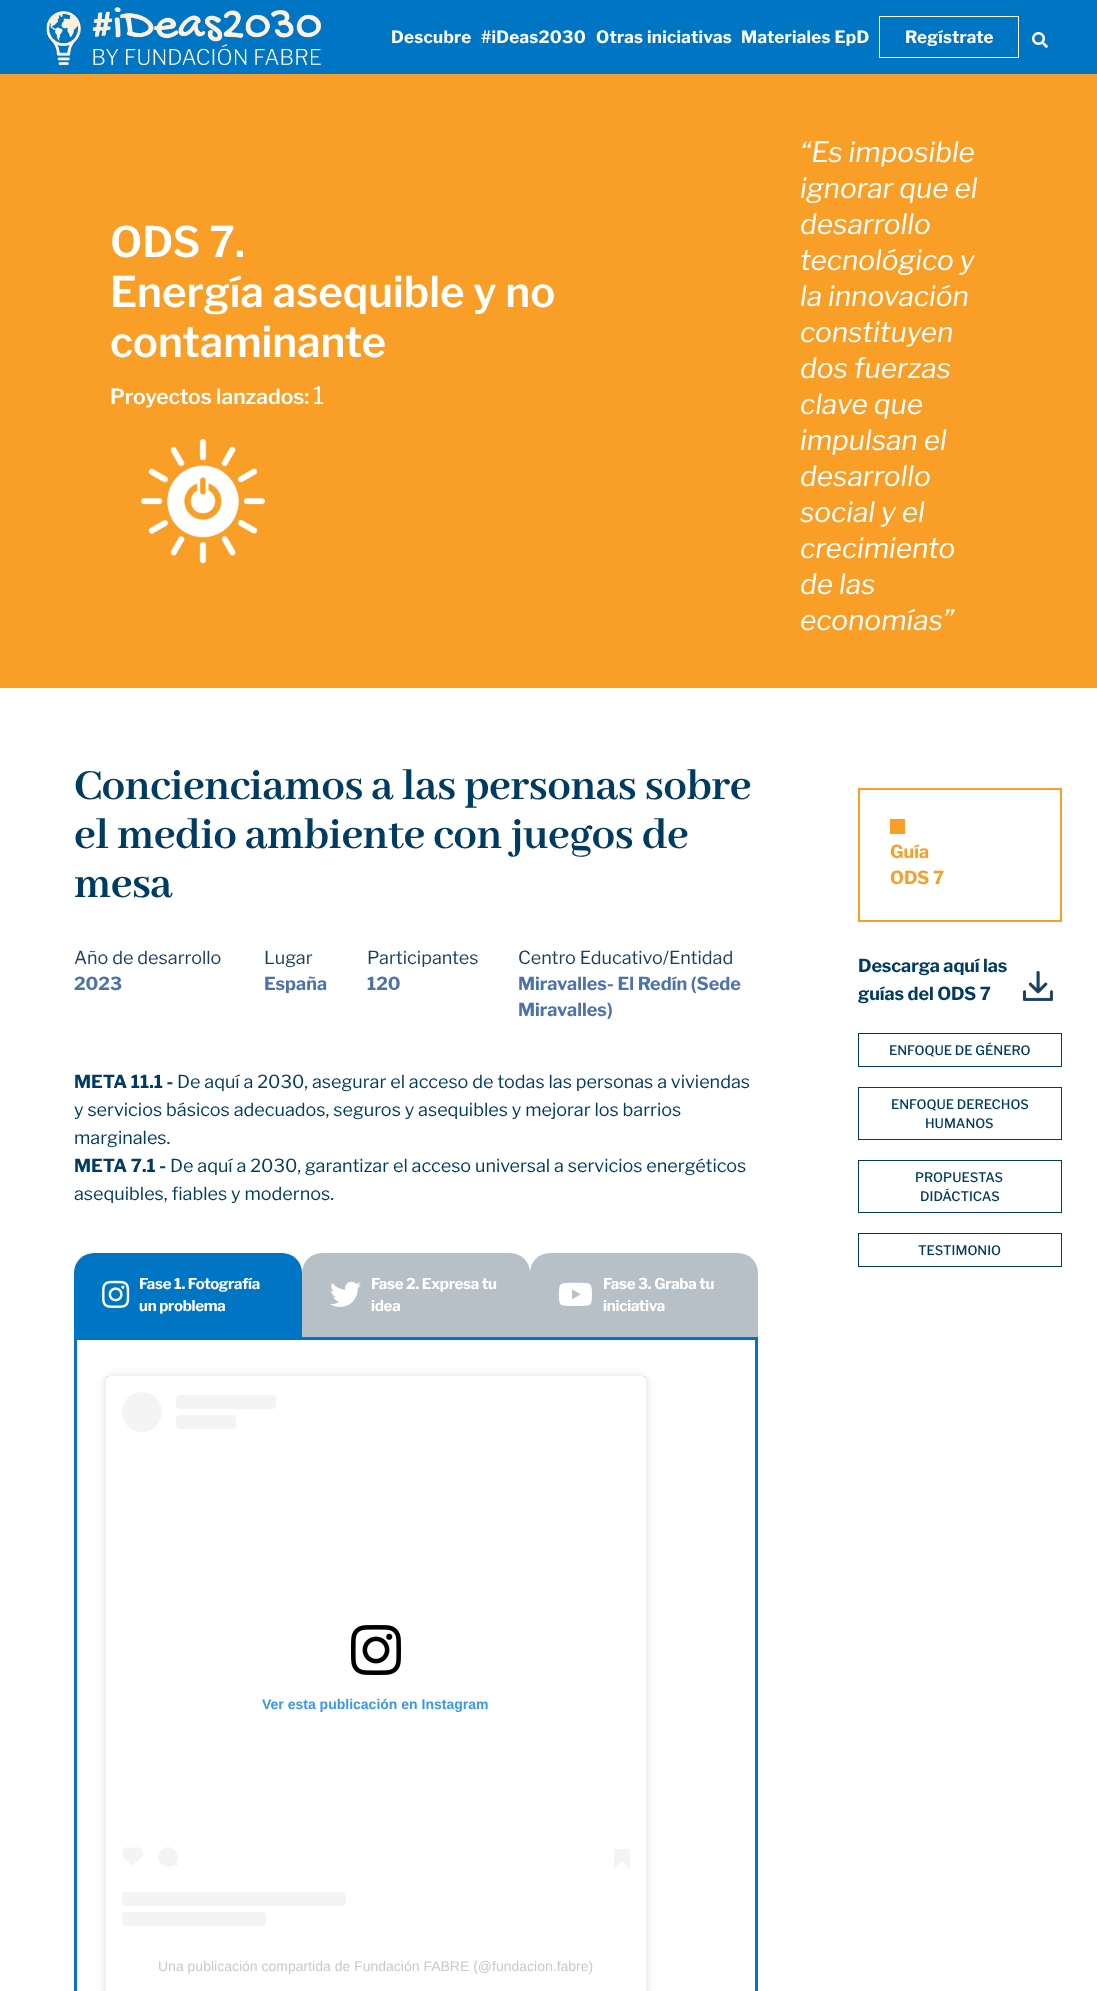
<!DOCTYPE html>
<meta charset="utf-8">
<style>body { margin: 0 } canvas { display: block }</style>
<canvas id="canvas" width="1097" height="1991"></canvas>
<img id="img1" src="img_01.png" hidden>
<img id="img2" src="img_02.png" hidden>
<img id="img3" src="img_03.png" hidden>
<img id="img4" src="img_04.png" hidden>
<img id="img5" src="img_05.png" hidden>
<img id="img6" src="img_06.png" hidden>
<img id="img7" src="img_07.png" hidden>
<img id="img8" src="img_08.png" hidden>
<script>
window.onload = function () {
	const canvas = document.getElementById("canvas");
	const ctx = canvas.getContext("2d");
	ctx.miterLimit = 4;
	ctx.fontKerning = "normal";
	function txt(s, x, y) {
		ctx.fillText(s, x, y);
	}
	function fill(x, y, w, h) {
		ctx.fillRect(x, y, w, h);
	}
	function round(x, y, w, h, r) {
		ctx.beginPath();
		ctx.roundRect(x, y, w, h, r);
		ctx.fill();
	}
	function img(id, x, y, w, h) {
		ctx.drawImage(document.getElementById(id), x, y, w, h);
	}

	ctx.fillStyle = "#FFFFFF";
	fill(0, 0, 1097, 1991);
	ctx.fillStyle = "#0075C3";
	fill(0, 0, 1097, 74);
	img("img1", 46, 7, 275, 58);
	ctx.strokeStyle = "#FFFFFF";
	ctx.strokeRect(879.5, 16.5, 139, 41);
	img("img2", 1032, 32, 16, 16);
	ctx.fillStyle = "#F99E27";
	fill(0, 74, 1097, 614);
	img("img3", 141, 439, 124, 125);
	ctx.fillStyle = "#0075C3";
	ctx.beginPath();
	ctx.roundRect(74, 1253, 228, 84, [20, 20, 0, 0]);
	ctx.fill();
	img("img4", 102, 1280, 28, 28);
	ctx.fillStyle = "#B8C0C7";
	ctx.beginPath();
	ctx.roundRect(302, 1253, 228, 84, [20, 20, 0, 0]);
	ctx.fill();
	img("img5", 330, 1281, 31, 26);
	ctx.beginPath();
	ctx.roundRect(530, 1253, 228, 84, [20, 20, 0, 0]);
	ctx.fill();
	img("img6", 558, 1282, 34, 24);
	ctx.strokeStyle = "#0075C3";
	ctx.lineWidth = 3;
	ctx.strokeRect(75.5, 1338.5, 681, 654);
	ctx.fillStyle = "rgba(0, 0, 0, 0.15)";
	ctx.filter = "blur(5px)";
	ctx.beginPath();
	ctx.roundRect(106, 1377, 540, 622, 3);
	ctx.fill();
	ctx.filter = "none";
	ctx.fillStyle = "rgba(0, 0, 0, 0.5)";
	ctx.filter = "blur(0.5px)";
	ctx.beginPath();
	ctx.roundRect(106, 1376, 540, 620, 3);
	ctx.fill();
	ctx.filter = "none";
	ctx.fillStyle = "#FFFFFF";
	round(106, 1376, 540, 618, 3);
	ctx.fillStyle = "#F4F4F4";
	ctx.beginPath();
	ctx.arc(142, 1412, 20, 0, Math.PI * 2);
	ctx.fill();
	round(176, 1395, 100, 14, 4);
	round(176, 1415, 60, 14, 4);
	img("img7", 351, 1625, 50, 50);
	round(122, 1847, 12, 13, 6);
	ctx.beginPath();
	ctx.moveTo(123.5, 1857.5);
	ctx.lineTo(132.5, 1848.5);
	ctx.lineTo(141.5, 1857.5);
	ctx.lineTo(132.5, 1866);
	ctx.closePath();
	ctx.fill();
	round(131, 1847, 12, 13, 6);
	ctx.beginPath();
	ctx.arc(168, 1857, 10, 0, Math.PI * 2);
	ctx.fill();
	ctx.beginPath();
	ctx.moveTo(173.5, 1865);
	ctx.lineTo(175.5, 1861.5);
	ctx.lineTo(179.5, 1866.5);
	ctx.closePath();
	ctx.fill();
	fill(614, 1849, 16, 12);
	ctx.beginPath();
	ctx.moveTo(614, 1861);
	ctx.lineTo(622, 1861);
	ctx.lineTo(614, 1869);
	ctx.closePath();
	ctx.fill();
	ctx.beginPath();
	ctx.moveTo(622, 1861);
	ctx.lineTo(630, 1861);
	ctx.lineTo(630, 1869);
	ctx.closePath();
	ctx.fill();
	round(122, 1892, 224, 14, 4);
	round(122, 1912, 144, 14, 4);
	ctx.strokeStyle = "#F99E27";
	ctx.lineWidth = 2;
	ctx.strokeRect(859, 789, 202, 132);
	ctx.fillStyle = "#F99E27";
	fill(890, 819, 15, 15);
	img("img8", 1022, 971, 31, 30);
	ctx.strokeStyle = "#003B62";
	ctx.lineWidth = 1;
	ctx.strokeRect(858.5, 1033.5, 203, 33);
	ctx.strokeRect(858.5, 1087.5, 203, 52);
	ctx.strokeRect(858.5, 1160.5, 203, 52);
	ctx.strokeRect(858.5, 1233.5, 203, 33);
	ctx.letterSpacing = "0.25px";
	ctx.font = "bold 17px Libre Franklin";
	ctx.fillStyle = "#FFFFFF";
	txt("Descubre", 391, 43);
	txt("#iDeas2030", 481, 43);
	txt("Otras iniciativas", 596, 43);
	txt("Materiales EpD", 741, 43);
	txt("Regístrate", 905, 43);
	ctx.letterSpacing = "0px";
	ctx.font = "600 42px Libre Franklin";
	txt("ODS 7.", 110, 257);
	txt("Energía asequible y no", 110, 307);
	txt("contaminante", 110, 357);
	ctx.font = "600 21px Libre Franklin";
	txt("Proyectos lanzados:", 110, 404);
	ctx.font = "24px Libre Franklin";
	txt("1", 313, 404);
	ctx.font = "italic 28px Libre Franklin";
	txt("“Es imposible", 800, 162);
	txt("ignorar que el", 800, 198);
	txt("desarrollo", 800, 234);
	txt("tecnológico y", 800, 270);
	txt("la innovación", 800, 306);
	txt("constituyen", 800, 342);
	txt("dos fuerzas", 800, 378);
	txt("clave que", 800, 414);
	txt("impulsan el", 800, 450);
	txt("desarrollo", 800, 486);
	txt("social y el", 800, 522);
	txt("crecimiento", 800, 558);
	txt("de las", 800, 594);
	txt("economías”", 800, 630);
	ctx.letterSpacing = "-0.5px";
	ctx.font = "bold 47px Abhaya Libre";
	ctx.fillStyle = "#003B62";
	txt("Concienciamos a las personas sobre", 74, 799);
	txt("el medio ambiente con juegos de", 74, 848);
	txt("mesa", 74, 897);
	ctx.letterSpacing = "0px";
	ctx.font = "18px Libre Franklin";
	ctx.fillStyle = "#1A3E64";
	txt("Año de desarrollo", 74, 964);
	ctx.font = "bold 18px Libre Franklin";
	ctx.fillStyle = "#4E73AB";
	txt("2023", 74, 990);
	ctx.font = "18px Libre Franklin";
	ctx.fillStyle = "#1A3E64";
	txt("Lugar", 264, 964);
	ctx.font = "bold 18px Libre Franklin";
	ctx.fillStyle = "#4E73AB";
	txt("España", 264, 990);
	ctx.font = "18px Libre Franklin";
	ctx.fillStyle = "#1A3E64";
	txt("Participantes", 367, 964);
	ctx.font = "bold 18px Libre Franklin";
	ctx.fillStyle = "#4E73AB";
	txt("120", 367, 990);
	ctx.font = "18px Libre Franklin";
	ctx.fillStyle = "#1A3E64";
	txt("Centro Educativo/Entidad", 518, 964);
	ctx.font = "bold 18px Libre Franklin";
	ctx.fillStyle = "#4E73AB";
	txt("Miravalles- El Redín (Sede", 518, 990);
	txt("Miravalles)", 518, 1016);
	ctx.fillStyle = "#003B62";
	txt("META 11.1 -", 74, 1088);
	ctx.font = "18px Libre Franklin";
	txt("De aquí a 2030, asegurar el acceso de todas las personas a viviendas", 177, 1088);
	txt("y servicios básicos adecuados, seguros y asequibles y mejorar los barrios", 74, 1116);
	txt("marginales.", 74, 1144);
	ctx.font = "bold 18px Libre Franklin";
	txt("META 7.1 -", 74, 1172);
	ctx.font = "18px Libre Franklin";
	txt("De aquí a 2030, garantizar el acceso universal a servicios energéticos", 170, 1172);
	txt("asequibles, fiables y modernos.", 74, 1200);
	ctx.letterSpacing = "-0.25px";
	ctx.font = "bold 15px Libre Franklin";
	ctx.fillStyle = "#FFFFFF";
	txt("Fase 1. Fotografía", 139, 1289);
	txt("un problema", 139, 1311);
	txt("Fase 2. Expresa tu", 371, 1289);
	txt("idea", 371, 1311);
	txt("Fase 3. Graba tu", 603, 1289);
	txt("iniciativa", 603, 1311);
	ctx.letterSpacing = "0px";
	ctx.font = "bold 14px Liberation Sans";
	ctx.fillStyle = "#3897F0";
	txt("Ver esta publicación en Instagram", 262, 1709);
	ctx.font = "14px Liberation Sans";
	ctx.fillStyle = "#C9C8CD";
	txt("Una publicación compartida de Fundación FABRE (@fundacion.fabre)", 158, 1971);
	ctx.font = "bold 18px Libre Franklin";
	ctx.fillStyle = "#F99E27";
	txt("Guía", 890, 858);
	txt("ODS 7", 890, 884);
	ctx.letterSpacing = "-0.1px";
	ctx.fillStyle = "#003B62";
	txt("Descarga aquí las", 858, 972);
	txt("guías del ODS 7", 858, 1000);
	ctx.letterSpacing = "0px";
	ctx.font = "500 13px Libre Franklin";
	txt("ENFOQUE DE GÉNERO", 889, 1055);
	txt("ENFOQUE DERECHOS", 891, 1109);
	txt("HUMANOS", 925, 1128);
	txt("PROPUESTAS", 915, 1182);
	txt("DIDÁCTICAS", 920, 1201);
	txt("TESTIMONIO", 918, 1255);
};
</script>
